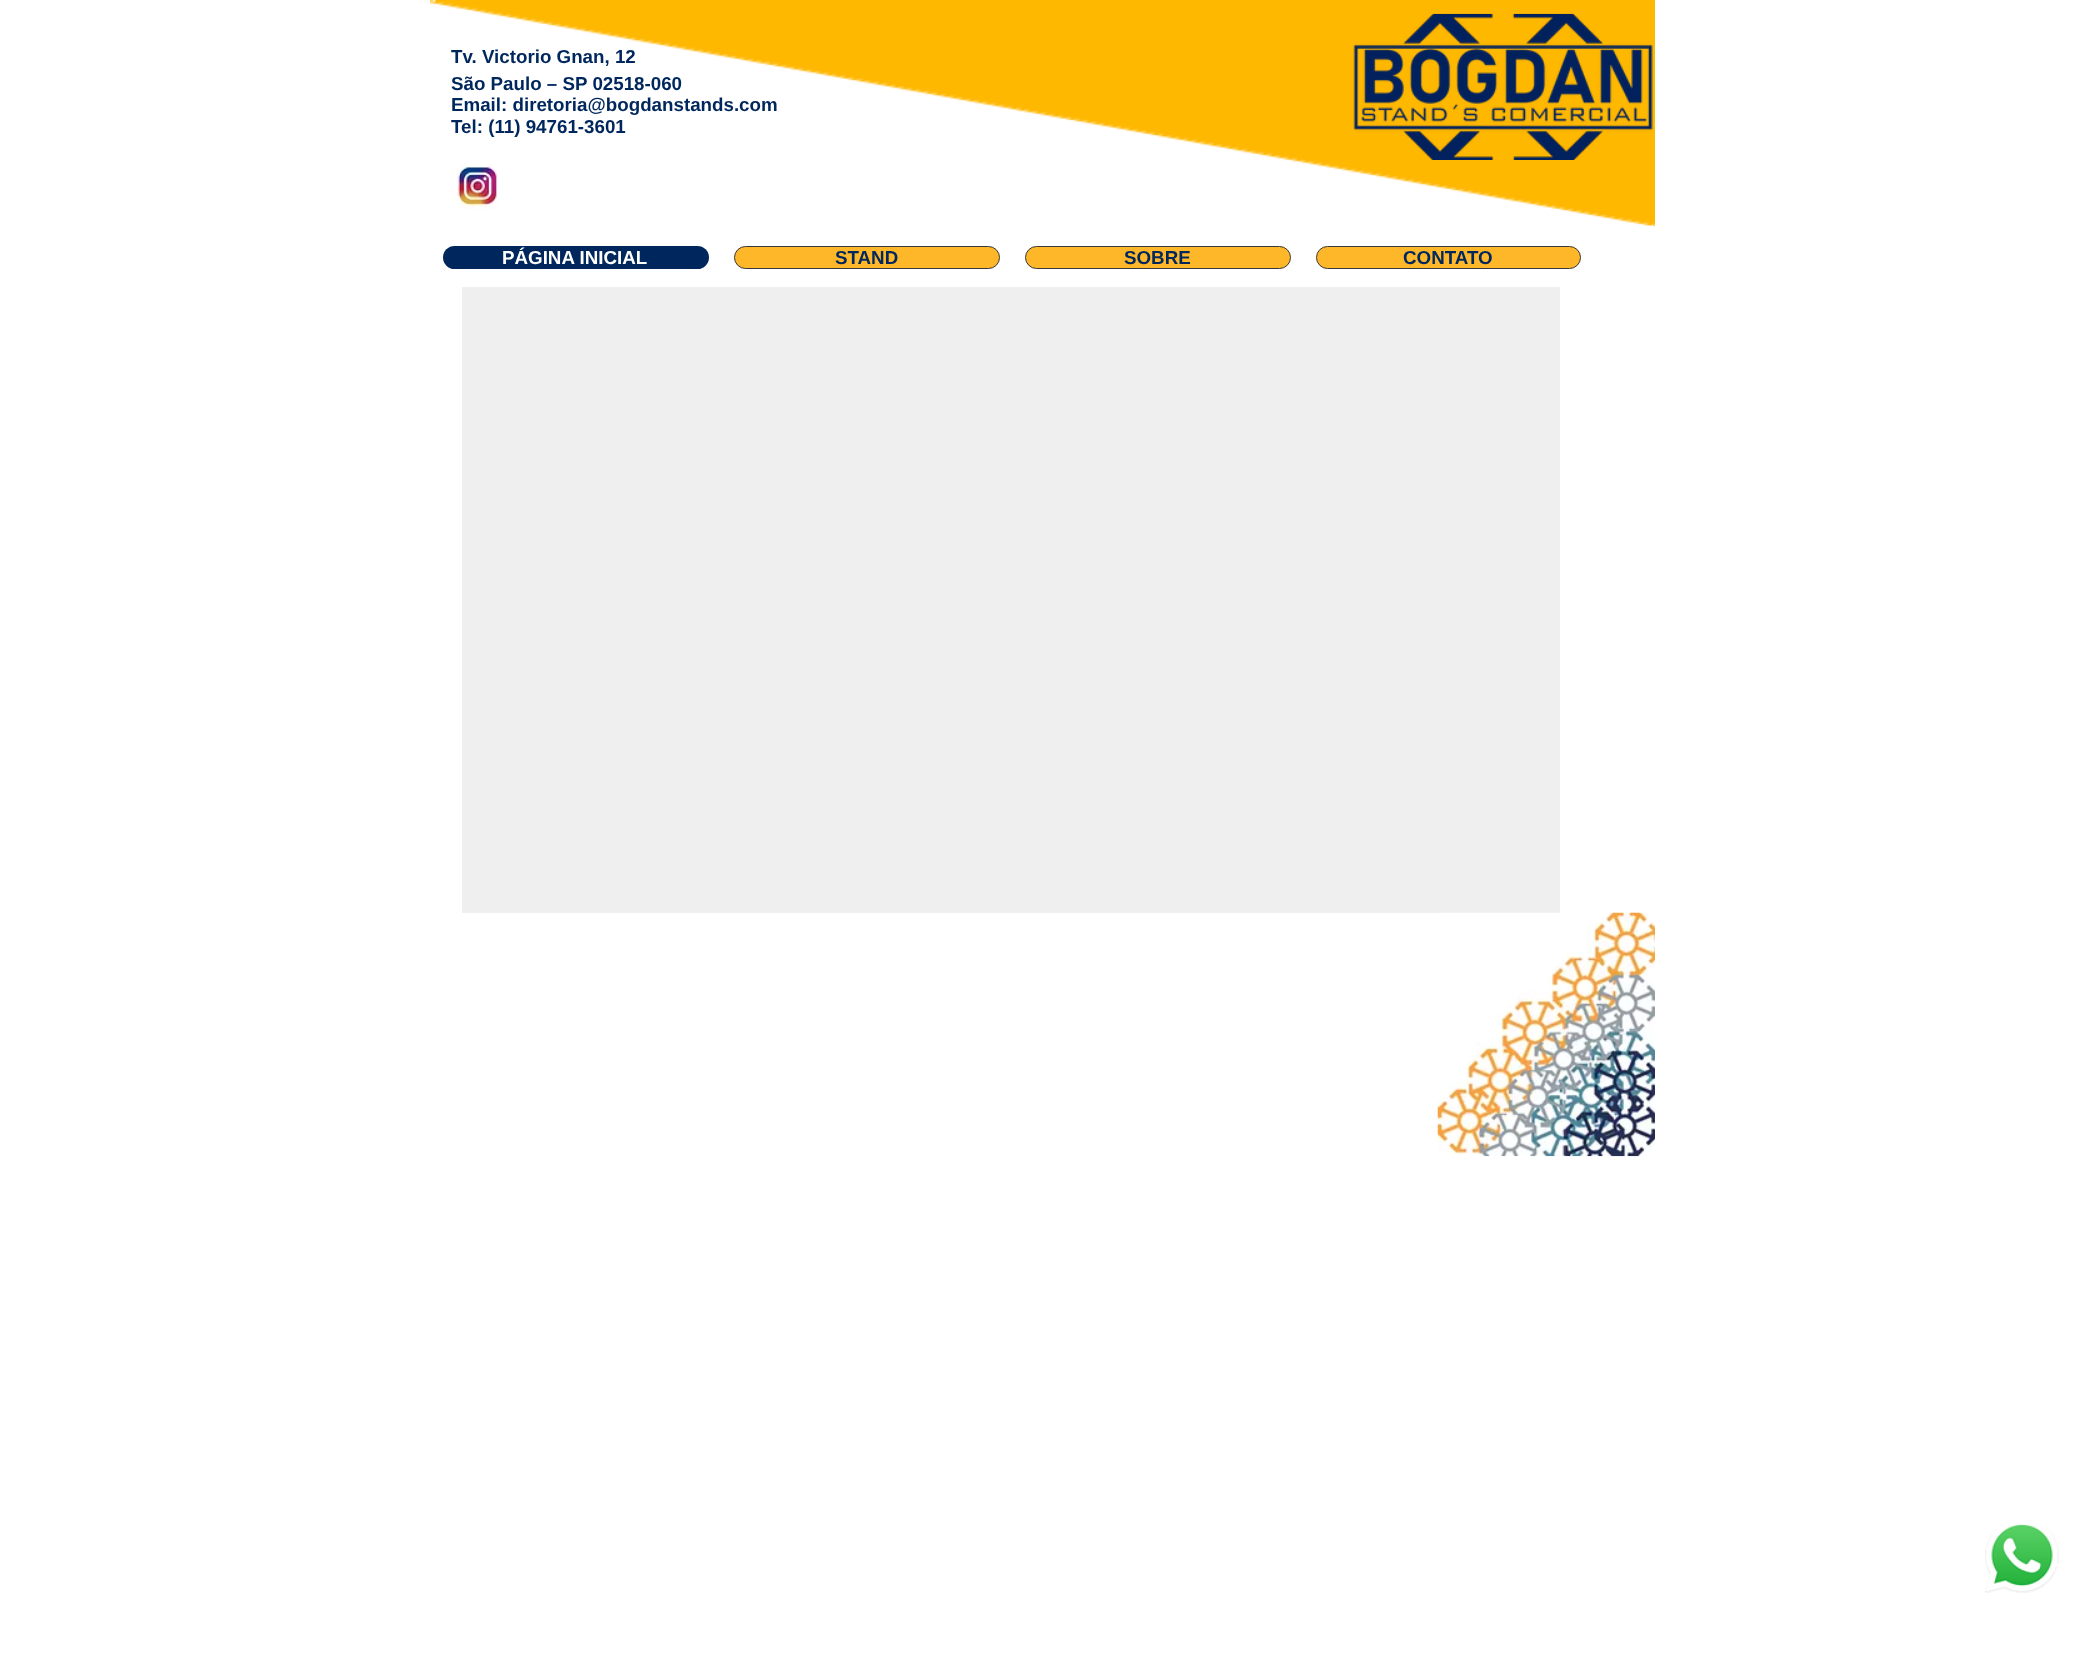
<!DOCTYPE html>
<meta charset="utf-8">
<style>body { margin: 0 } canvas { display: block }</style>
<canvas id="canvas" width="2083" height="1655"></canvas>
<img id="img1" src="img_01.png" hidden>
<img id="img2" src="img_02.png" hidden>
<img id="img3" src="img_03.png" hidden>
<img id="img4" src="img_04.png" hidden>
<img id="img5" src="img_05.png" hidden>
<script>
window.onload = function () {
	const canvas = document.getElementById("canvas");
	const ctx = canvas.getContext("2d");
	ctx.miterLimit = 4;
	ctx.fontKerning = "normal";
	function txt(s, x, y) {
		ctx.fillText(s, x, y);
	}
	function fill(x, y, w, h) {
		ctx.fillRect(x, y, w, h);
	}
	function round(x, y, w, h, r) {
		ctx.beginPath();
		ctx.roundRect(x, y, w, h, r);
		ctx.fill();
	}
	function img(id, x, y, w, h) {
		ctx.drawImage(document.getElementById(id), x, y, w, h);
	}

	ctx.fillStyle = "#FFFFFF";
	fill(0, 0, 2083, 1655);
	img("img1", 430, 0, 1225, 227);
	img("img2", 1353, 13, 300, 147);
	img("img3", 451, 163, 50, 47);
	ctx.fillStyle = "#00275D";
	round(443, 246, 266, 23, 11.5);
	ctx.fillStyle = "#FEB729";
	ctx.beginPath();
	ctx.roundRect(734.5, 246.5, 265, 22, 11);
	ctx.fill();
	ctx.strokeStyle = "#383838";
	ctx.stroke();
	ctx.beginPath();
	ctx.roundRect(1025.5, 246.5, 265, 22, 11);
	ctx.fill();
	ctx.stroke();
	ctx.beginPath();
	ctx.roundRect(1316.5, 246.5, 264, 22, 11);
	ctx.fill();
	ctx.stroke();
	ctx.fillStyle = "#EFEFEF";
	fill(462, 287, 1098, 626);
	img("img4", 1437, 912, 218, 245);
	img("img5", 1985, 1524, 74, 69);
	ctx.font = "bold 18.75px Liberation Sans";
	ctx.fillStyle = "#00275D";
	txt("Tv. Victorio Gnan, 12", 451, 63);
	txt("São Paulo – SP 02518-060", 451, 90);
	txt("Email: diretoria@bogdanstands.com", 451, 111);
	txt("Tel: (11) 94761-3601", 451, 133);
	ctx.fillStyle = "#FFFFFF";
	txt("PÁGINA INICIAL", 502, 264);
	ctx.fillStyle = "#00275D";
	txt("STAND", 835, 264);
	txt("SOBRE", 1124, 264);
	txt("CONTATO", 1403, 264);
};
</script>
